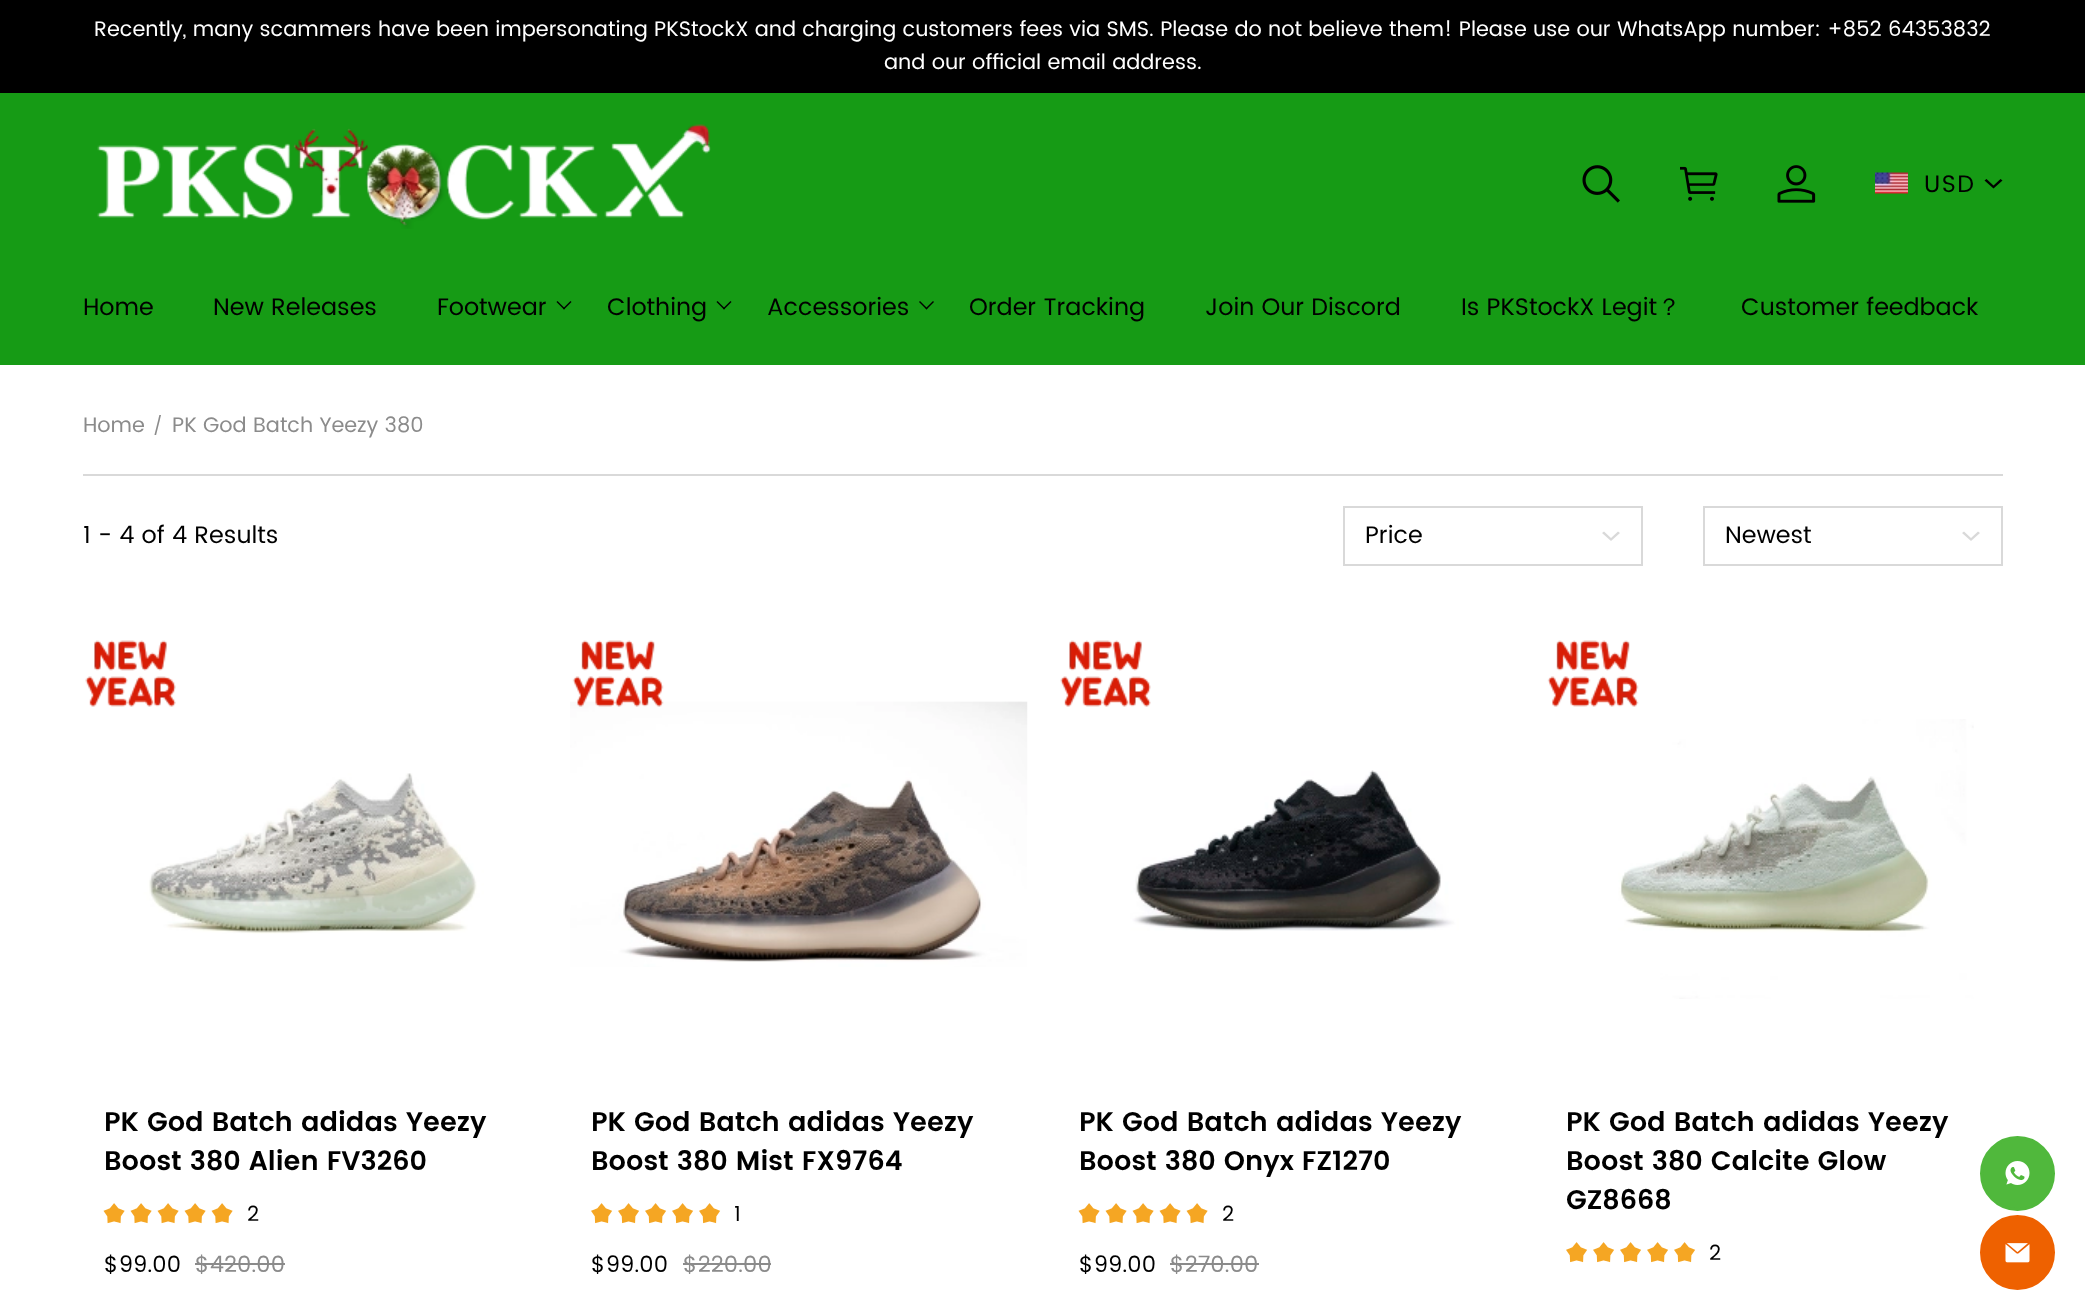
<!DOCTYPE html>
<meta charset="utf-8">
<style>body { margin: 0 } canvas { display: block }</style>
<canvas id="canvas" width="2085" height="1294"></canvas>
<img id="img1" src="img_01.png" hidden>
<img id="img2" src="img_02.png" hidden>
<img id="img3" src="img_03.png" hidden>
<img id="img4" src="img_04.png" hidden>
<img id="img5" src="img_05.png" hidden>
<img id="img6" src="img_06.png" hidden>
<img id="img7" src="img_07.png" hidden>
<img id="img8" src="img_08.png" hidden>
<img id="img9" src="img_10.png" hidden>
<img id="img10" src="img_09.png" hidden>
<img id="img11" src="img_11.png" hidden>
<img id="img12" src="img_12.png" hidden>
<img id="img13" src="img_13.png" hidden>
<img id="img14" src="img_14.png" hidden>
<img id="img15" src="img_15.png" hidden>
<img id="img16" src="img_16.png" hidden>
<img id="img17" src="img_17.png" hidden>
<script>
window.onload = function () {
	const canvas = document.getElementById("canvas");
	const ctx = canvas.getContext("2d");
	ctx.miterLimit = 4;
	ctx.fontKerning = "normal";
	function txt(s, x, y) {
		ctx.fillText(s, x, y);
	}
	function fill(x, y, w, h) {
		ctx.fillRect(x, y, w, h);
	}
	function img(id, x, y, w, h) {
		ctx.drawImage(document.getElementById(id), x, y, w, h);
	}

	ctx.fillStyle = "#FFFFFF";
	fill(0, 0, 2085, 1294);
	ctx.fillStyle = "#000000";
	fill(0, 0, 2085, 93);
	ctx.fillStyle = "#169B15";
	fill(0, 93, 2085, 272);
	img("img1", 97, 124, 614, 105);
	img("img2", 1582, 165, 38, 38);
	img("img3", 1680, 166, 38, 35);
	img("img4", 1777, 165, 39, 38);
	img("img5", 1875, 172, 33, 22);
	ctx.fillStyle = "#000000";
	ctx.beginPath();
	ctx.moveTo(1986.5, 179);
	ctx.lineTo(1993.5, 185.5);
	ctx.lineTo(2000.5, 179);
	ctx.lineTo(2002.5, 180.5);
	ctx.lineTo(1993.5, 188.5);
	ctx.lineTo(1984.5, 180.5);
	ctx.closePath();
	ctx.fill();
	ctx.beginPath();
	ctx.moveTo(571.5, 302);
	ctx.lineTo(564, 309.5);
	ctx.lineTo(563, 308.5);
	ctx.lineTo(570.5, 301);
	ctx.closePath();
	ctx.fill();
	ctx.beginPath();
	ctx.moveTo(565, 308.5);
	ctx.lineTo(564, 309.5);
	ctx.lineTo(556.5, 302);
	ctx.lineTo(557.5, 301);
	ctx.closePath();
	ctx.fill();
	ctx.beginPath();
	ctx.moveTo(731.5, 302);
	ctx.lineTo(724, 309.5);
	ctx.lineTo(723, 308.5);
	ctx.lineTo(730.5, 301);
	ctx.closePath();
	ctx.fill();
	ctx.beginPath();
	ctx.moveTo(725, 308.5);
	ctx.lineTo(724, 309.5);
	ctx.lineTo(716.5, 302);
	ctx.lineTo(717.5, 301);
	ctx.closePath();
	ctx.fill();
	ctx.beginPath();
	ctx.moveTo(934, 302);
	ctx.lineTo(926.5, 309.5);
	ctx.lineTo(925.5, 308.5);
	ctx.lineTo(933, 301);
	ctx.closePath();
	ctx.fill();
	ctx.beginPath();
	ctx.moveTo(927.5, 308.5);
	ctx.lineTo(926.5, 309.5);
	ctx.lineTo(919, 302);
	ctx.lineTo(920, 301);
	ctx.closePath();
	ctx.fill();
	ctx.fillStyle = "#D9D9D9";
	fill(83, 474, 1920, 2);
	ctx.strokeStyle = "#D9D9D9";
	ctx.lineWidth = 2;
	ctx.strokeRect(1344, 507, 298, 58);
	ctx.beginPath();
	ctx.moveTo(1604, 531.5);
	ctx.lineTo(1611, 538);
	ctx.lineTo(1618, 531.5);
	ctx.lineTo(1620, 533);
	ctx.lineTo(1611, 541);
	ctx.lineTo(1602, 533);
	ctx.closePath();
	ctx.fill();
	ctx.strokeRect(1704, 507, 298, 58);
	ctx.beginPath();
	ctx.moveTo(1964, 531.5);
	ctx.lineTo(1971, 538);
	ctx.lineTo(1978, 531.5);
	ctx.lineTo(1980, 533);
	ctx.lineTo(1971, 541);
	ctx.lineTo(1962, 533);
	ctx.closePath();
	ctx.fill();
	img("img6", 85, 640, 91, 67);
	img("img7", 141, 773, 343, 161);
	img("img8", 103, 1203, 22, 21);
	img("img8", 130, 1203, 22, 21);
	img("img8", 157, 1203, 22, 21);
	img("img8", 184, 1203, 22, 21);
	img("img8", 211, 1203, 22, 21);
	ctx.fillStyle = "#8B8B8B";
	fill(195, 1263, 90, 2);
	img("img9", 570, 701, 458, 266);
	img("img10", 572, 640, 92, 67);
	img("img11", 591, 1203, 22, 21);
	img("img11", 618, 1203, 22, 21);
	img("img11", 645, 1203, 22, 21);
	img("img11", 672, 1203, 22, 21);
	img("img11", 699, 1203, 22, 21);
	fill(683, 1263, 88, 2);
	img("img12", 1060, 640, 91, 67);
	img("img13", 1116, 770, 343, 161);
	img("img8", 1078, 1203, 22, 21);
	img("img8", 1105, 1203, 22, 21);
	img("img8", 1132, 1203, 22, 21);
	img("img8", 1159, 1203, 22, 21);
	img("img8", 1186, 1203, 22, 21);
	fill(1170, 1263, 89, 2);
	img("img14", 1547, 640, 92, 67);
	img("img15", 1603, 719, 371, 280);
	img("img11", 1566, 1242, 22, 21);
	img("img11", 1593, 1242, 22, 21);
	img("img11", 1620, 1242, 22, 21);
	img("img11", 1647, 1242, 22, 21);
	img("img11", 1674, 1242, 22, 21);
	ctx.fillStyle = "#50B83C";
	ctx.beginPath();
	ctx.arc(2017.5, 1173.5, 36, 0, Math.PI * 2);
	ctx.fill();
	ctx.strokeStyle = "#50B83C";
	ctx.lineWidth = 3;
	ctx.stroke();
	img("img16", 2005, 1161, 25, 24);
	ctx.fillStyle = "#EE6100";
	ctx.beginPath();
	ctx.arc(2017.5, 1252.5, 36, 0, Math.PI * 2);
	ctx.fill();
	ctx.strokeStyle = "#EE6100";
	ctx.stroke();
	img("img17", 2005, 1243, 25, 20);
	ctx.font = "21px Poppins";
	ctx.fillStyle = "#FFFFFF";
	txt("Recently, many scammers have been impersonating PKStockX and charging customers fees via SMS. Please do not believe them! Please use our WhatsApp number: +852 64353832", 94, 36);
	txt("and our official email address.", 884, 69);
	ctx.letterSpacing = "1.5px";
	ctx.font = "24px Poppins";
	ctx.fillStyle = "#000000";
	txt("USD", 1924, 192);
	ctx.letterSpacing = "0px";
	txt("Home", 83, 315);
	txt("New Releases", 213, 315);
	txt("Footwear", 437, 315);
	txt("Clothing", 607, 315);
	txt("Accessories", 767, 315);
	txt("Order Tracking", 969, 315);
	txt("Join Our Discord", 1205, 315);
	txt("Is PKStockX Legit", 1461, 315);
	ctx.font = "500 24px WenQuanYi Zen Hei";
	txt("？", 1657, 315);
	ctx.font = "24px Poppins";
	txt("Customer feedback", 1741, 315);
	ctx.font = "21px Poppins";
	ctx.fillStyle = "#8B8B8B";
	txt("Home", 83, 432);
	ctx.font = "18px Poppins";
	txt("/", 153, 432);
	ctx.font = "21px Poppins";
	txt("PK God Batch Yeezy 380", 172, 432);
	ctx.font = "24px Poppins";
	ctx.fillStyle = "#000000";
	txt("1 - 4 of 4 Results", 83, 543);
	txt("Price", 1365, 543);
	txt("Newest", 1725, 543);
	ctx.font = "600 27px Poppins";
	txt("PK God Batch adidas Yeezy", 104, 1131);
	txt("Boost 380 Alien FV3260", 104, 1170);
	ctx.font = "21px Poppins";
	txt("2", 247, 1221);
	ctx.font = "22.5px Poppins";
	txt("$99.00", 104, 1272);
	ctx.fillStyle = "#8B8B8B";
	txt("$420.00", 195, 1272);
	ctx.font = "600 27px Poppins";
	ctx.fillStyle = "#000000";
	txt("PK God Batch adidas Yeezy", 591, 1131);
	txt("Boost 380 Mist FX9764", 591, 1170);
	ctx.font = "21px Poppins";
	txt("1", 734, 1221);
	ctx.font = "22.5px Poppins";
	txt("$99.00", 591, 1272);
	ctx.fillStyle = "#8B8B8B";
	txt("$220.00", 683, 1272);
	ctx.font = "600 27px Poppins";
	ctx.fillStyle = "#000000";
	txt("PK God Batch adidas Yeezy", 1079, 1131);
	txt("Boost 380 Onyx FZ1270", 1079, 1170);
	ctx.font = "21px Poppins";
	txt("2", 1222, 1221);
	ctx.font = "22.5px Poppins";
	txt("$99.00", 1079, 1272);
	ctx.fillStyle = "#8B8B8B";
	txt("$270.00", 1170, 1272);
	ctx.font = "600 27px Poppins";
	ctx.fillStyle = "#000000";
	txt("PK God Batch adidas Yeezy", 1566, 1131);
	txt("Boost 380 Calcite Glow", 1566, 1170);
	txt("GZ8668", 1566, 1209);
	ctx.font = "21px Poppins";
	txt("2", 1709, 1260);
};
</script>
